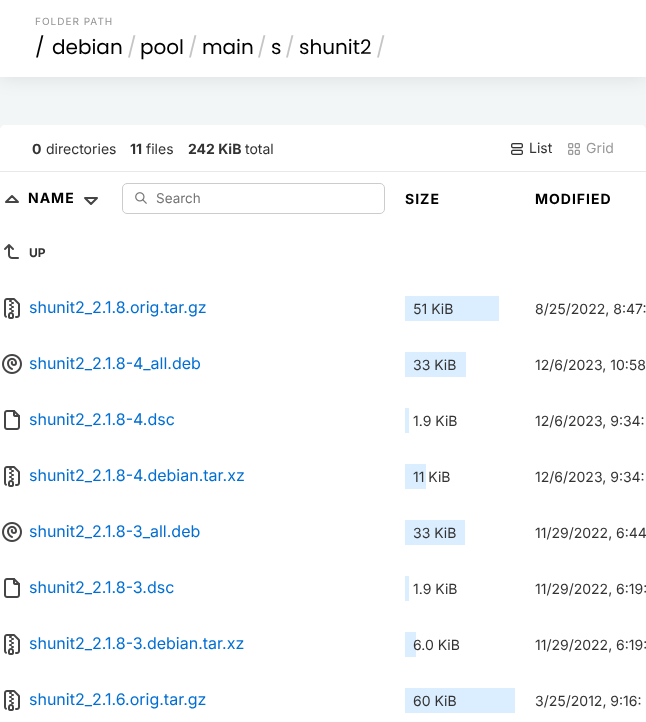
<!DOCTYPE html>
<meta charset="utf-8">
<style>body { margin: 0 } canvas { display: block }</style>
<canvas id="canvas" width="646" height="722"></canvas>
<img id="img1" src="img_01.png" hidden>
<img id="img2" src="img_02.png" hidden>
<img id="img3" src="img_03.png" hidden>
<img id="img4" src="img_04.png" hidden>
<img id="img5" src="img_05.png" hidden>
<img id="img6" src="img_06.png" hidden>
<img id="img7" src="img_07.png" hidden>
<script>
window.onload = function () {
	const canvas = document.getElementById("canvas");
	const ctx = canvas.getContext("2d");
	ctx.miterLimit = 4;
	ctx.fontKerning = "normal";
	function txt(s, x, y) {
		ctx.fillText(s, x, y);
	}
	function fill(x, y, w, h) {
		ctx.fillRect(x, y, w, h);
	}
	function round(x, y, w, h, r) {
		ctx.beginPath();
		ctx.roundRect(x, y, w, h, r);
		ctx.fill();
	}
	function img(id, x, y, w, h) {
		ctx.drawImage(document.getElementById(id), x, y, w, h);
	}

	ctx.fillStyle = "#F3F6F7";
	fill(0, 0, 646, 722);
	ctx.fillStyle = "rgba(0, 0, 0, 0.1)";
	ctx.filter = "blur(10px)";
	ctx.beginPath();
	ctx.rect(0, 0, 646, 77);
	ctx.fill();
	ctx.filter = "none";
	ctx.fillStyle = "#FFFFFF";
	fill(0, 0, 646, 77);
	round(0, 125, 646, 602, 5);
	ctx.fillStyle = "#E5E9EA";
	fill(0, 171, 646, 1);
	img("img1", 511, 143, 12, 12);
	img("img2", 568, 143, 12, 12);
	ctx.beginPath();
	ctx.moveTo(18, 202);
	ctx.lineTo(12, 196);
	ctx.lineTo(6, 202);
	ctx.lineTo(18, 202);
	ctx.strokeStyle = "#454545";
	ctx.lineWidth = 2;
	ctx.lineCap = "round";
	ctx.lineJoin = "round";
	ctx.stroke();
	ctx.beginPath();
	ctx.moveTo(85, 198);
	ctx.lineTo(91, 204);
	ctx.lineTo(97, 198);
	ctx.lineTo(85, 198);
	ctx.stroke();
	img("img3", 135, 192, 12, 12);
	ctx.beginPath();
	ctx.roundRect(122.5, 183.5, 262, 30, 4.5);
	ctx.strokeStyle = "#CCCCCC";
	ctx.lineWidth = 1;
	ctx.lineJoin = "miter";
	ctx.stroke();
	img("img4", 4, 244, 15, 15);
	img("img5", 4, 298, 16, 21);
	ctx.fillStyle = "#DBEEFF";
	fill(405, 296, 94, 25);
	img("img6", 2, 354, 20, 20);
	fill(405, 352, 61, 25);
	img("img7", 4, 410, 16, 20);
	fill(405, 408, 4, 25);
	img("img5", 4, 466, 16, 21);
	fill(405, 464, 21, 25);
	img("img6", 2, 522, 20, 20);
	fill(405, 520, 60, 25);
	img("img7", 4, 578, 16, 20);
	fill(405, 576, 4, 25);
	img("img5", 4, 634, 16, 21);
	fill(405, 632, 11, 25);
	img("img5", 4, 690, 16, 21);
	fill(405, 688, 110, 25);
	ctx.letterSpacing = "1px";
	ctx.font = "10px Inter";
	ctx.fillStyle = "#939393";
	txt("FOLDER PATH", 35, 25);
	ctx.letterSpacing = "0px";
	ctx.font = "20px Poppins";
	ctx.fillStyle = "#000000";
	txt("/", 35, 54);
	txt("debian", 52, 54);
	ctx.fillStyle = "#C5C5C5";
	txt("/", 127, 54);
	ctx.fillStyle = "#000000";
	txt("pool", 140, 54);
	ctx.fillStyle = "#C5C5C5";
	txt("/", 188, 54);
	ctx.fillStyle = "#000000";
	txt("main", 202, 54);
	ctx.fillStyle = "#C5C5C5";
	txt("/", 257, 54);
	ctx.fillStyle = "#000000";
	txt("s", 271, 54);
	ctx.fillStyle = "#C5C5C5";
	txt("/", 285, 54);
	ctx.fillStyle = "#000000";
	txt("shunit2", 299, 54);
	ctx.fillStyle = "#C5C5C5";
	txt("/", 376, 54);
	ctx.font = "bold 14px Inter";
	ctx.fillStyle = "#333333";
	txt("0", 32, 154);
	ctx.font = "14px Inter";
	txt("directories", 46, 154);
	ctx.font = "bold 14px Inter";
	txt("11", 130, 154);
	ctx.font = "14px Inter";
	txt("files", 146, 154);
	ctx.font = "bold 14px Inter";
	txt("242 KiB", 188, 154);
	ctx.font = "14px Inter";
	txt("total", 245, 154);
	txt("List", 529, 153);
	ctx.fillStyle = "#9A9A9A";
	txt("Grid", 586, 153);
	ctx.letterSpacing = "1px";
	ctx.font = "bold 14px Inter";
	ctx.fillStyle = "#000000";
	txt("NAME", 28, 203);
	ctx.letterSpacing = "0px";
	ctx.font = "13.5px Inter";
	ctx.fillStyle = "#757575";
	txt("Search", 156, 203);
	ctx.letterSpacing = "1px";
	ctx.font = "bold 14px Inter";
	ctx.fillStyle = "#000000";
	txt("SIZE", 405, 204);
	txt("MODIFIED", 535, 204);
	ctx.letterSpacing = "0px";
	ctx.font = "bold 12px Inter";
	ctx.fillStyle = "#333333";
	txt("UP", 29, 257);
	ctx.font = "16px Inter";
	ctx.fillStyle = "#006ED3";
	txt("shunit2_2.1.8.orig.tar.gz", 29, 313);
	ctx.font = "14px Inter";
	ctx.fillStyle = "#333333";
	txt("51 KiB", 413, 314);
	txt("8/25/2022, 8:47:", 535, 314);
	ctx.font = "16px Inter";
	ctx.fillStyle = "#006ED3";
	txt("shunit2_2.1.8-4_all.deb", 29, 369);
	ctx.font = "14px Inter";
	ctx.fillStyle = "#333333";
	txt("33 KiB", 413, 370);
	txt("12/6/2023, 10:58", 535, 370);
	ctx.font = "16px Inter";
	ctx.fillStyle = "#006ED3";
	txt("shunit2_2.1.8-4.dsc", 29, 425);
	ctx.font = "14px Inter";
	ctx.fillStyle = "#333333";
	txt("1.9 KiB", 413, 426);
	txt("12/6/2023, 9:34:", 535, 426);
	ctx.font = "16px Inter";
	ctx.fillStyle = "#006ED3";
	txt("shunit2_2.1.8-4.debian.tar.xz", 29, 481);
	ctx.font = "14px Inter";
	ctx.fillStyle = "#333333";
	txt("11 KiB", 413, 482);
	txt("12/6/2023, 9:34:", 535, 482);
	ctx.font = "16px Inter";
	ctx.fillStyle = "#006ED3";
	txt("shunit2_2.1.8-3_all.deb", 29, 537);
	ctx.font = "14px Inter";
	ctx.fillStyle = "#333333";
	txt("33 KiB", 413, 538);
	txt("11/29/2022, 6:44", 535, 538);
	ctx.font = "16px Inter";
	ctx.fillStyle = "#006ED3";
	txt("shunit2_2.1.8-3.dsc", 29, 593);
	ctx.font = "14px Inter";
	ctx.fillStyle = "#333333";
	txt("1.9 KiB", 413, 594);
	txt("11/29/2022, 6:19:", 535, 594);
	ctx.font = "16px Inter";
	ctx.fillStyle = "#006ED3";
	txt("shunit2_2.1.8-3.debian.tar.xz", 29, 649);
	ctx.font = "14px Inter";
	ctx.fillStyle = "#333333";
	txt("6.0 KiB", 413, 650);
	txt("11/29/2022, 6:19:", 535, 650);
	ctx.font = "16px Inter";
	ctx.fillStyle = "#006ED3";
	txt("shunit2_2.1.6.orig.tar.gz", 29, 705);
	ctx.font = "14px Inter";
	ctx.fillStyle = "#333333";
	txt("60 KiB", 413, 706);
	txt("3/25/2012, 9:16:", 535, 706);
};
</script>
